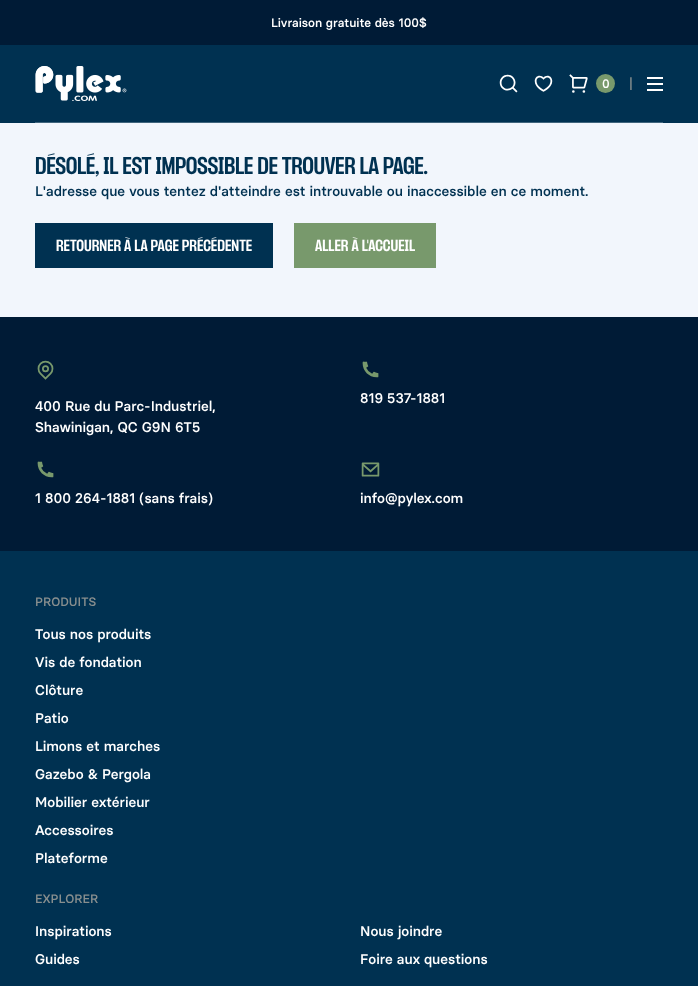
<!DOCTYPE html>
<meta charset="utf-8">
<style>body { margin: 0 } canvas { display: block }</style>
<canvas id="canvas" width="698" height="986"></canvas>
<img id="img1" src="img_01.png" hidden>
<img id="img2" src="img_02.png" hidden>
<img id="img3" src="img_03.png" hidden>
<img id="img4" src="img_04.png" hidden>
<img id="img5" src="img_05.png" hidden>
<img id="img6" src="img_06.png" hidden>
<img id="img7" src="img_07.png" hidden>
<script>
window.onload = function () {
	const canvas = document.getElementById("canvas");
	const ctx = canvas.getContext("2d");
	ctx.miterLimit = 4;
	ctx.fontKerning = "normal";
	function txt(s, x, y) {
		ctx.fillText(s, x, y);
	}
	function fill(x, y, w, h) {
		ctx.fillRect(x, y, w, h);
	}
	function img(id, x, y, w, h) {
		ctx.drawImage(document.getElementById(id), x, y, w, h);
	}

	ctx.fillStyle = "#F2F6FC";
	fill(0, 0, 698, 986);
	ctx.fillStyle = "#001B36";
	fill(0, 0, 698, 45);
	ctx.fillStyle = "#003151";
	fill(0, 45, 698, 78);
	ctx.fillStyle = "#40657D";
	fill(35, 122, 628, 1);
	img("img1", 35, 66, 92, 35);
	img("img2", 499, 74, 19, 19);
	img("img3", 534, 75, 19, 17);
	img("img4", 569, 74, 19, 19);
	ctx.fillStyle = "#78996C";
	ctx.beginPath();
	ctx.arc(605.5, 83.5, 9.5, 0, Math.PI * 2);
	ctx.fill();
	ctx.fillStyle = "#FFFFFF";
	fill(647, 77, 16, 2);
	fill(647, 83, 16, 2);
	fill(647, 89, 16, 2);
	ctx.fillStyle = "#003151";
	fill(35, 223, 238, 45);
	ctx.fillStyle = "#78996C";
	fill(294, 223, 142, 45);
	ctx.fillStyle = "#003151";
	fill(0, 551, 698, 435);
	ctx.fillStyle = "#001B36";
	fill(0, 317, 698, 234);
	img("img5", 362, 361, 17, 17);
	img("img6", 37, 360, 17, 20);
	img("img5", 37, 461, 17, 17);
	img("img7", 361, 462, 19, 15);
	ctx.font = "500 12.25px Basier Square";
	ctx.fillStyle = "#FFFFFF";
	txt("Livraison gratuite dès 100$", 271, 27);
	txt("0", 602, 88);
	ctx.font = "500 14px Basier Square";
	ctx.fillStyle = "#878E8E";
	txt("|", 629, 88);
	ctx.letterSpacing = "-0.4px";
	ctx.font = "bold 21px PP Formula";
	ctx.fillStyle = "#003151";
	txt("DÉSOLÉ, IL EST IMPOSSIBLE DE TROUVER LA PAGE.", 35, 174);
	ctx.letterSpacing = "0px";
	ctx.font = "500 14px Basier Square";
	txt("L'adresse que vous tentez d'atteindre est introuvable ou inaccessible en ce moment.", 35, 196);
	ctx.font = "bold 14px PP Formula";
	ctx.fillStyle = "#FFFFFF";
	txt("RETOURNER À LA PAGE PRÉCÉDENTE", 56, 251);
	txt("ALLER À L'ACCUEIL", 315, 251);
	ctx.font = "500 14px Basier Square";
	txt("819 537-1881", 360, 403);
	txt("400 Rue du Parc-Industriel,", 35, 411);
	txt("Shawinigan, QC G9N 6T5", 35, 432);
	txt("1 800 264-1881 (sans frais)", 35, 503);
	txt("info@pylex.com", 360, 503);
	ctx.font = "500 12.25px Basier Square";
	ctx.fillStyle = "#878E8E";
	txt("PRODUITS", 35, 606);
	ctx.font = "500 14px Basier Square";
	ctx.fillStyle = "#FFFFFF";
	txt("Tous nos produits", 35, 639);
	txt("Vis de fondation", 35, 667);
	txt("Clôture", 35, 695);
	txt("Patio", 35, 723);
	txt("Limons et marches", 35, 751);
	txt("Gazebo & Pergola", 35, 779);
	txt("Mobilier extérieur", 35, 807);
	txt("Accessoires", 35, 835);
	txt("Plateforme", 35, 863);
	ctx.font = "500 12.25px Basier Square";
	ctx.fillStyle = "#878E8E";
	txt("EXPLORER", 35, 903);
	ctx.font = "500 14px Basier Square";
	ctx.fillStyle = "#FFFFFF";
	txt("Inspirations", 35, 936);
	txt("Guides", 35, 964);
	txt("Nous joindre", 360, 936);
	txt("Foire aux questions", 360, 964);
};
</script>
